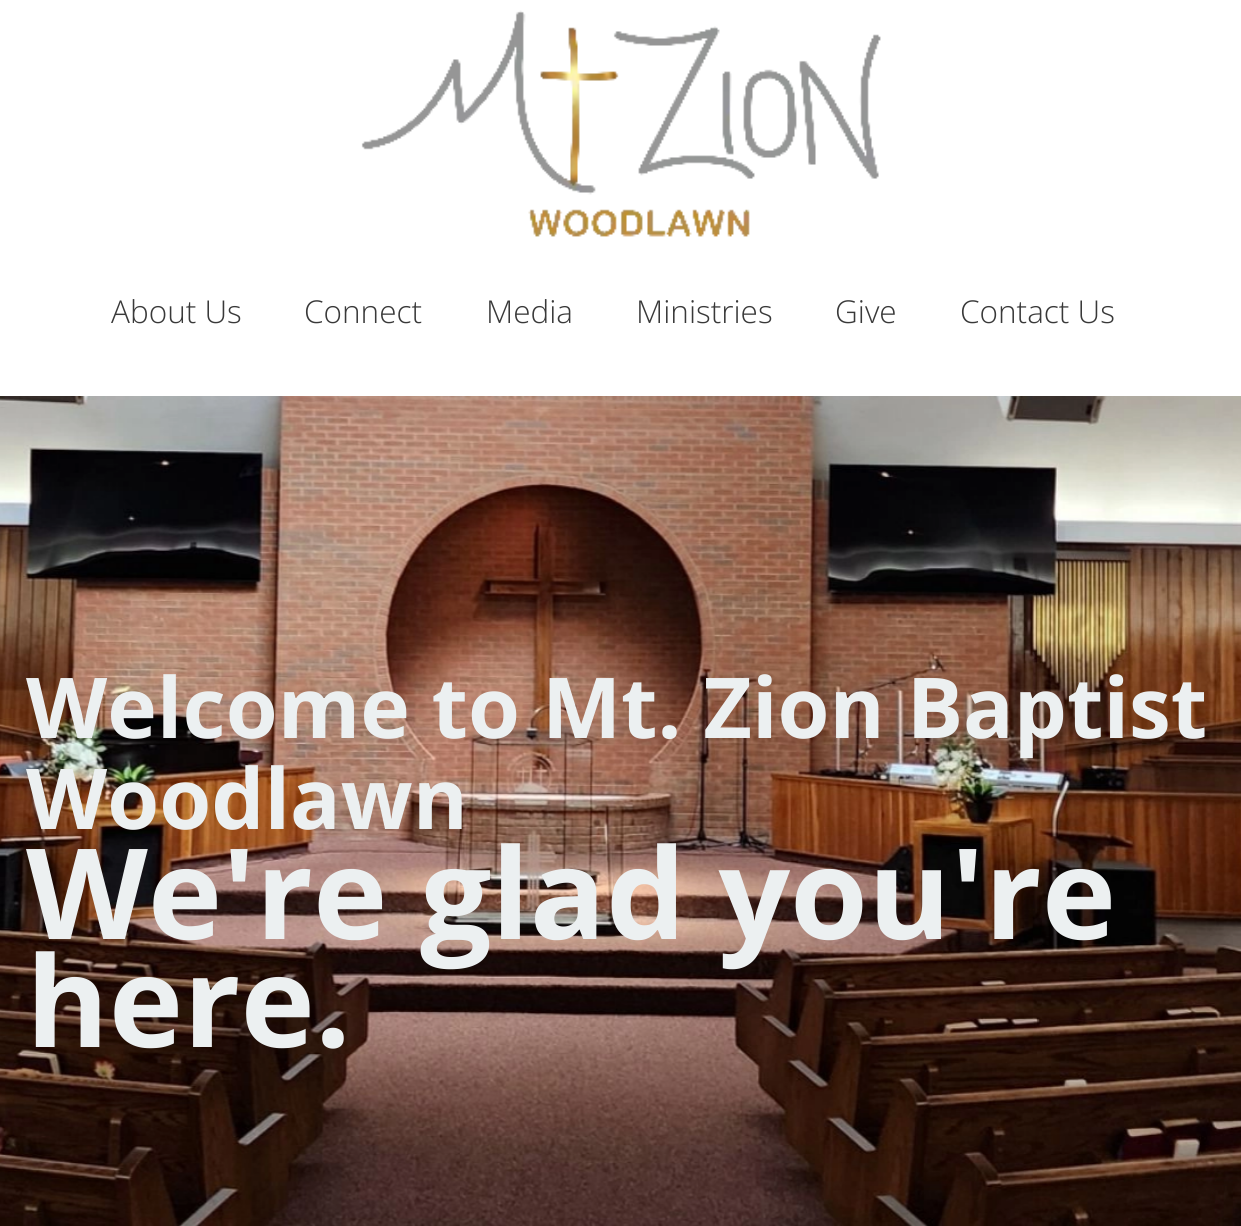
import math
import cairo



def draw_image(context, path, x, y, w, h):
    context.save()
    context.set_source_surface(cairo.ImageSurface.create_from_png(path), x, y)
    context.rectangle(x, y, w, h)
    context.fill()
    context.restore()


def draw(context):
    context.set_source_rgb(1, 1, 1)
    context.paint()
    draw_image(context, "images/1.png", 361, 10, 520, 227)
    draw_image(context, "images/2.png", 0, 396, 1241, 830)
    context.select_font_face("Open Sans Light")
    context.set_font_size(31.5)
    context.set_source_rgb(57 / 255, 57 / 255, 57 / 255)
    context.move_to(111, 323)
    context.show_text("About Us")
    context.move_to(304, 323)
    context.show_text("Connect")
    context.move_to(486, 323)
    context.show_text("Media")
    context.move_to(636, 323)
    context.show_text("Ministries")
    context.move_to(835, 323)
    context.show_text("Give")
    context.move_to(960, 323)
    context.show_text("Contact Us")
    context.select_font_face("Open Sans", cairo.FontSlant.NORMAL, cairo.FontWeight.BOLD)
    context.set_font_size(84)
    context.set_source_rgb(236 / 255, 240 / 255, 241 / 255)
    context.move_to(26, 738)
    context.show_text("Welcome to Mt. Zion Baptist")
    context.move_to(26, 829)
    context.show_text("Woodlawn")
    context.set_font_size(126)
    context.move_to(26, 939)
    context.show_text("We're glad you're")
    context.move_to(26, 1047)
    context.show_text("here.")


surface = cairo.ImageSurface(cairo.Format.RGB24, 1241, 1226)
context = cairo.Context(surface)
options = cairo.FontOptions()
options.set_hint_metrics(cairo.HintMetrics.OFF)
options.set_hint_style(cairo.HintStyle.NONE)
context.set_font_options(options)
context.set_miter_limit(4)
draw(context)
surface.write_to_png("out.png")
